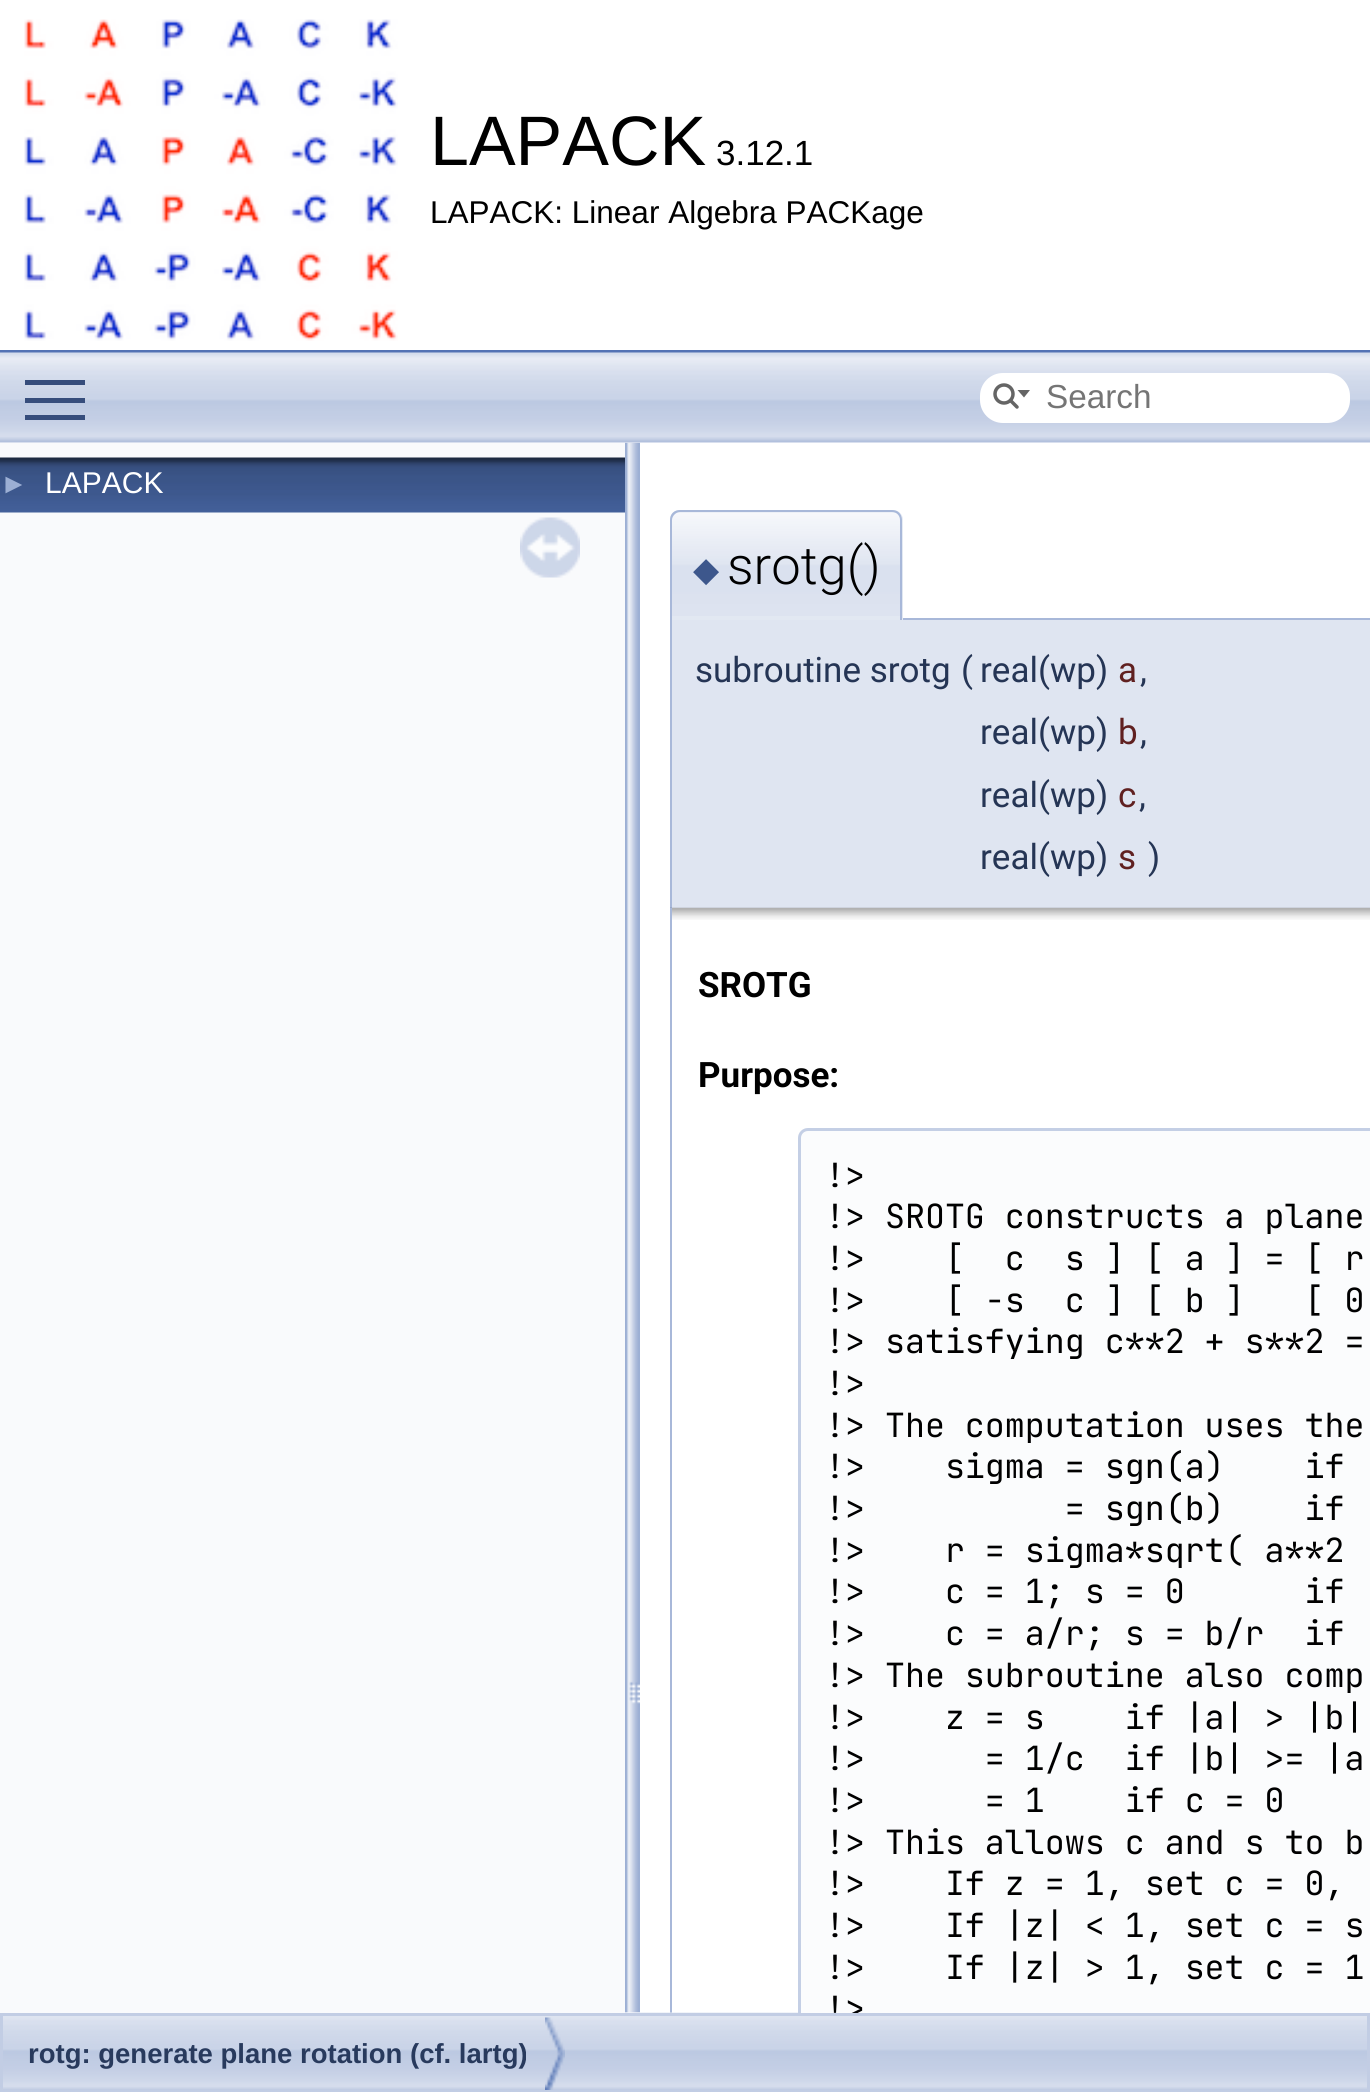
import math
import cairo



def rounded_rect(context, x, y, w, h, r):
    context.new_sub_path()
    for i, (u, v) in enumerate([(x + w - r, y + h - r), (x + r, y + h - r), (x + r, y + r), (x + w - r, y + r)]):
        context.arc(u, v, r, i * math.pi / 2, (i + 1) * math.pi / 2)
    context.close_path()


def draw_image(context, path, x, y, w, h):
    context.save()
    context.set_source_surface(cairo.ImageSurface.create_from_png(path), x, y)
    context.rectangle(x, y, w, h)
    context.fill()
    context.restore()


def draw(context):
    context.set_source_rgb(1, 1, 1)
    context.paint()
    context.set_source_rgb(83 / 255, 115 / 255, 180 / 255)
    context.rectangle(0, 350, 1370, 3)
    context.fill()
    draw_image(context, "images/1.png", 24, 19, 374, 322)
    context.set_source_rgb(223 / 255, 229 / 255, 241 / 255)
    context.rectangle(672, 620, 698, 288)
    context.fill()
    context.set_source_rgb(168 / 255, 184 / 255, 217 / 255)
    context.set_fill_rule(cairo.FillRule.EVEN_ODD)
    context.new_path()
    context.move_to(670, 618)
    context.line_to(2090, 618)
    context.curve_to(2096, 618, 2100, 622, 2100, 628)
    context.line_to(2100, 908)
    context.line_to(670, 908)
    context.close_path()
    context.move_to(672, 620)
    context.line_to(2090, 620)
    context.curve_to(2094, 620, 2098, 623, 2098, 628)
    context.line_to(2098, 908)
    context.line_to(672, 908)
    context.close_path()
    context.fill()
    draw_image(context, "images/7.png", 670, 907, 700, 13)
    context.new_path()
    context.move_to(670, 908)
    context.line_to(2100, 908)
    context.line_to(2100, 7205)
    context.curve_to(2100, 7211, 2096, 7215, 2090, 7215)
    context.line_to(680, 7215)
    context.curve_to(674, 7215, 670, 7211, 670, 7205)
    context.close_path()
    context.move_to(672, 908)
    context.line_to(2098, 908)
    context.line_to(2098, 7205)
    context.curve_to(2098, 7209, 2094, 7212, 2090, 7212)
    context.line_to(680, 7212)
    context.curve_to(676, 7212, 672, 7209, 672, 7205)
    context.close_path()
    context.fill()
    draw_image(context, "images/8.png", 3, 2012, 1364, 78)
    draw_image(context, "images/5.png", 625, 442, 15, 1571)
    draw_image(context, "images/2.png", 0, 352, 1370, 91)
    context.set_source_rgb(54 / 255, 77 / 255, 124 / 255)
    context.rectangle(25, 398, 60, 5)
    context.fill()
    context.rectangle(25, 380, 60, 5)
    context.fill()
    context.rectangle(25, 415, 60, 5)
    context.fill()
    context.set_source_rgb(1, 1, 1)
    rounded_rect(context, 980, 373, 370, 50, 23)
    context.fill()
    context.arc(1004, 394, 9, 0, 2 * math.pi)
    context.set_source_rgb(101 / 255, 101 / 255, 101 / 255)
    context.set_line_width(3.5)
    context.stroke()
    context.set_fill_rule(cairo.FillRule.WINDING)
    context.new_path()
    context.move_to(1017.5, 390)
    context.line_to(1024, 397.5)
    context.line_to(1030, 390)
    context.close_path()
    context.fill()
    context.new_path()
    context.move_to(1010.5, 400.5)
    context.line_to(1017, 407)
    context.set_line_cap(cairo.LineCap.ROUND)
    context.stroke()
    context.set_source_rgb(249 / 255, 250 / 255, 252 / 255)
    context.rectangle(0, 443, 625, 1570)
    context.fill()
    draw_image(context, "images/3.png", 0, 457, 625, 56)
    draw_image(context, "images/4.png", 520, 517, 60, 61)
    context.set_source_rgb(226 / 255, 232 / 255, 242 / 255)
    context.new_path()
    context.move_to(680, 510)
    context.line_to(893, 510)
    context.curve_to(898.5, 510, 903, 514.5, 903, 520)
    context.line_to(903, 620)
    context.line_to(670, 620)
    context.line_to(670, 520)
    context.curve_to(670, 514.5, 674.5, 510, 680, 510)
    context.close_path()
    context.fill()
    draw_image(context, "images/6.png", 670, 512, 233, 104)
    context.set_source_rgb(168 / 255, 184 / 255, 217 / 255)
    context.set_fill_rule(cairo.FillRule.EVEN_ODD)
    context.new_path()
    context.move_to(680, 510)
    context.line_to(892, 510)
    context.curve_to(898, 510, 902, 514, 902, 520)
    context.line_to(902, 620)
    context.line_to(670, 620)
    context.line_to(670, 520)
    context.curve_to(670, 514, 674, 510, 680, 510)
    context.close_path()
    context.move_to(680, 512)
    context.line_to(892, 512)
    context.curve_to(897, 512, 900, 516, 900, 520)
    context.line_to(900, 620)
    context.line_to(672, 620)
    context.line_to(672, 520)
    context.curve_to(672, 516, 676, 512, 680, 512)
    context.close_path()
    context.fill()
    context.set_source_rgb(251 / 255, 252 / 255, 253 / 255)
    context.new_path()
    context.move_to(808, 1128)
    context.line_to(1370, 1128)
    context.line_to(1370, 2013)
    context.line_to(798, 2013)
    context.line_to(798, 1138)
    context.curve_to(798, 1132.5, 802.5, 1128, 808, 1128)
    context.close_path()
    context.fill()
    context.rectangle(1.5, 2014.5, 1367, 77)
    context.set_source_rgb(194 / 255, 205 / 255, 228 / 255)
    context.set_line_width(3)
    context.set_line_cap(cairo.LineCap.BUTT)
    context.stroke()
    context.save()
    context.set_fill_rule(cairo.FillRule.WINDING)
    context.rectangle(640, 443, 730, 1570)
    context.clip()
    rounded_rect(context, 799.5, 1129.5, 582, 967, 8.5)
    context.set_source_rgb(196 / 255, 207 / 255, 229 / 255)
    context.stroke()
    context.restore()
    draw_image(context, "images/9.png", 545, 2017, 20, 73)
    context.select_font_face("Liberation Sans")
    context.set_font_size(70)
    context.set_source_rgb(0, 0, 0)
    context.move_to(430, 165)
    context.show_text("LAPACK")
    context.set_font_size(35)
    context.move_to(716, 165)
    context.show_text("3.12.1")
    context.set_font_size(31.5)
    context.move_to(430, 223)
    context.show_text("LAPACK: Linear Algebra PACKage")
    context.set_font_size(33.3)
    context.set_source_rgb(117 / 255, 117 / 255, 117 / 255)
    context.move_to(1046, 408)
    context.show_text("Search")
    context.set_font_size(28)
    context.set_source_rgb(156 / 255, 175 / 255, 212 / 255)
    context.move_to(0, 493)
    context.show_text("►")
    context.set_font_size(30)
    context.set_source_rgb(1, 1, 1)
    context.move_to(45, 493)
    context.show_text("LAPACK")
    context.select_font_face("DejaVu Sans")
    context.set_font_size(34)
    context.set_source_rgb(61 / 255, 87 / 255, 140 / 255)
    context.move_to(693, 581)
    context.show_text("◆")
    context.select_font_face("Roboto Light")
    context.set_font_size(52.5)
    context.set_source_rgb(0, 0, 0)
    context.move_to(727, 584)
    context.show_text("srotg()")
    context.select_font_face("Roboto")
    context.set_font_size(35)
    context.set_source_rgb(37 / 255, 53 / 255, 85 / 255)
    context.move_to(695, 682)
    context.show_text("subroutine srotg")
    context.move_to(961, 682)
    context.show_text("(")
    context.move_to(980, 682)
    context.show_text("real(wp)")
    context.set_source_rgb(96 / 255, 32 / 255, 32 / 255)
    context.move_to(1118, 682)
    context.show_text("a")
    context.set_source_rgb(37 / 255, 53 / 255, 85 / 255)
    context.move_to(1140, 682)
    context.show_text(",")
    context.move_to(980, 744)
    context.show_text("real(wp)")
    context.set_source_rgb(96 / 255, 32 / 255, 32 / 255)
    context.move_to(1118, 744)
    context.show_text("b")
    context.set_source_rgb(37 / 255, 53 / 255, 85 / 255)
    context.move_to(1140, 744)
    context.show_text(",")
    context.move_to(980, 807)
    context.show_text("real(wp)")
    context.set_source_rgb(96 / 255, 32 / 255, 32 / 255)
    context.move_to(1118, 807)
    context.show_text("c")
    context.set_source_rgb(37 / 255, 53 / 255, 85 / 255)
    context.move_to(1139, 807)
    context.show_text(",")
    context.move_to(980, 869)
    context.show_text("real(wp)")
    context.set_source_rgb(96 / 255, 32 / 255, 32 / 255)
    context.move_to(1118, 869)
    context.show_text("s")
    context.set_source_rgb(37 / 255, 53 / 255, 85 / 255)
    context.move_to(1148, 869)
    context.show_text(")")
    context.select_font_face("Roboto", cairo.FontSlant.NORMAL, cairo.FontWeight.BOLD)
    context.set_source_rgb(0, 0, 0)
    context.move_to(698, 997)
    context.show_text("SROTG")
    context.move_to(698, 1087)
    context.show_text("Purpose:")
    context.select_font_face("JetBrains Mono")
    context.set_font_size(33.3)
    context.move_to(825, 1187)
    context.show_text("!>")
    context.move_to(825, 1228)
    context.show_text("!> SROTG constructs a plane")
    context.move_to(825, 1270)
    context.show_text("!>    [  c  s ] [ a ] = [ r")
    context.move_to(825, 1312)
    context.show_text("!>    [ -s  c ] [ b ]   [ 0")
    context.move_to(825, 1353)
    context.show_text("!> satisfying c**2 + s**2 =")
    context.move_to(825, 1395)
    context.show_text("!>")
    context.move_to(825, 1437)
    context.show_text("!> The computation uses the")
    context.move_to(825, 1478)
    context.show_text("!>    sigma = sgn(a)    if")
    context.move_to(825, 1520)
    context.show_text("!>          = sgn(b)    if")
    context.move_to(825, 1562)
    context.show_text("!>    r = sigma*sqrt( a**2")
    context.move_to(825, 1603)
    context.show_text("!>    c = 1; s = 0      if")
    context.move_to(825, 1645)
    context.show_text("!>    c = a/r; s = b/r  if")
    context.move_to(825, 1687)
    context.show_text("!> The subroutine also comp")
    context.move_to(825, 1729)
    context.show_text("!>    z = s    if |a| > |b|")
    context.move_to(825, 1770)
    context.show_text("!>      = 1/c  if |b| >= |a")
    context.move_to(825, 1812)
    context.show_text("!>      = 1    if c = 0")
    context.move_to(825, 1854)
    context.show_text("!> This allows c and s to b")
    context.move_to(825, 1895)
    context.show_text("!>    If z = 1, set c = 0,")
    context.move_to(825, 1937)
    context.show_text("!>    If |z| < 1, set c = s")
    context.move_to(825, 1979)
    context.show_text("!>    If |z| > 1, set c = 1")
    context.save()
    context.set_fill_rule(cairo.FillRule.WINDING)
    context.rectangle(640, 443, 730, 1570)
    context.clip()
    context.move_to(825, 2020)
    context.show_text("!>")
    context.restore()
    context.select_font_face("Liberation Sans", cairo.FontSlant.NORMAL, cairo.FontWeight.BOLD)
    context.set_font_size(27.5)
    context.set_source_rgb(40 / 255, 58 / 255, 93 / 255)
    context.move_to(28, 2063)
    context.show_text("rotg: generate plane rotation (cf. lartg)")


surface = cairo.ImageSurface(cairo.Format.RGB24, 1370, 2092)
context = cairo.Context(surface)
options = cairo.FontOptions()
options.set_hint_metrics(cairo.HintMetrics.OFF)
options.set_hint_style(cairo.HintStyle.NONE)
context.set_font_options(options)
context.set_miter_limit(4)
draw(context)
surface.write_to_png("out.png")
